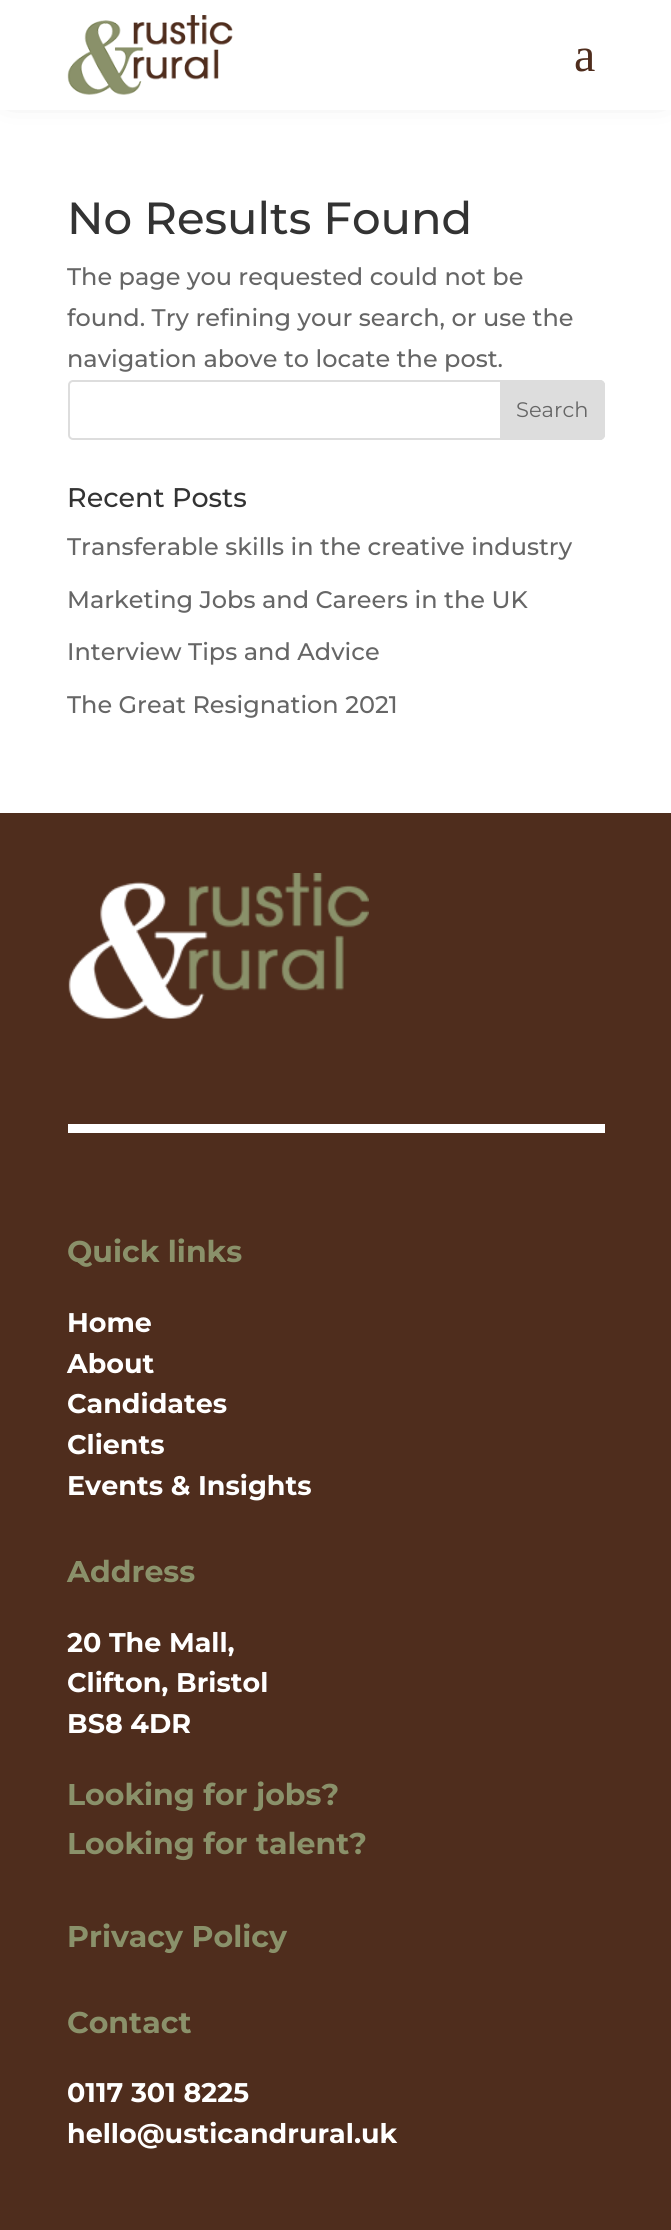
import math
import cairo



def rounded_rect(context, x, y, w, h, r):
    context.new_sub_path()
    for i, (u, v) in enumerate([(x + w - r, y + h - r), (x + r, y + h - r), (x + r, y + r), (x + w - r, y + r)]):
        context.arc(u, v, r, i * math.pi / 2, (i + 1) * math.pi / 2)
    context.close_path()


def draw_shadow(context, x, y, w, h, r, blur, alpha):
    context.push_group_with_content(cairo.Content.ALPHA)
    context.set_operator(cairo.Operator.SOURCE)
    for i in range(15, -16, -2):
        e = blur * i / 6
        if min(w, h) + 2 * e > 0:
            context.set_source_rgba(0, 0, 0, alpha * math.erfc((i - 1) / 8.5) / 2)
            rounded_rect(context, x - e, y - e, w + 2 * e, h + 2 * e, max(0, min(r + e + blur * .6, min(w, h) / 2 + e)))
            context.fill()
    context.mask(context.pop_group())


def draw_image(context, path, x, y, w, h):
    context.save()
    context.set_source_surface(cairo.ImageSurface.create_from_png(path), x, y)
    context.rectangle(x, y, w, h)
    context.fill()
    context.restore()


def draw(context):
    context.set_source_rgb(1, 1, 1)
    context.paint()
    context.set_source_rgb(0, 0, 0)
    draw_shadow(context, 9, -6, 654, 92, 0, 18, 0.3)
    context.set_source_rgb(1, 1, 1)
    context.rectangle(0, 0, 671, 110)
    context.fill()
    draw_image(context, "images/1.png", 67, 15, 166, 80)
    rounded_rect(context, 69, 381, 535, 58, 4)
    context.set_source_rgb(221 / 255, 221 / 255, 221 / 255)
    context.stroke()
    context.new_path()
    context.move_to(501, 381)
    context.line_to(600, 381)
    context.curve_to(602, 381, 604, 383, 604, 385)
    context.line_to(604, 435)
    context.curve_to(604, 437, 602, 439, 600, 439)
    context.line_to(501, 439)
    context.close_path()
    context.fill_preserve()
    context.stroke()
    context.set_source_rgb(79 / 255, 45 / 255, 29 / 255)
    context.rectangle(0, 813, 671, 1417)
    context.fill()
    draw_image(context, "images/2.png", 68, 873, 301, 146)
    context.set_source_rgb(1, 1, 1)
    context.rectangle(68, 1124, 537, 9)
    context.fill()
    context.select_font_face("Liberation Serif")
    context.set_font_size(48)
    context.set_source_rgb(79 / 255, 45 / 255, 29 / 255)
    context.move_to(574, 71)
    context.show_text("a")
    context.select_font_face("Montserrat Thin")
    context.set_font_size(45)
    context.set_source_rgb(51 / 255, 51 / 255, 51 / 255)
    context.move_to(67, 234)
    context.show_text("No Results Found")
    context.set_font_size(24)
    context.set_source_rgb(102 / 255, 102 / 255, 102 / 255)
    context.move_to(67, 285)
    context.show_text("The page you requested could not be")
    context.move_to(67, 326)
    context.show_text("found. Try refining your search, or use the")
    context.move_to(67, 367)
    context.show_text("navigation above to locate the post.")
    context.select_font_face("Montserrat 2 Thin")
    context.set_font_size(21)
    context.move_to(516, 417)
    context.show_text("Search")
    context.select_font_face("Montserrat Thin")
    context.set_font_size(27)
    context.set_source_rgb(51 / 255, 51 / 255, 51 / 255)
    context.move_to(67, 507)
    context.show_text("Recent Posts")
    context.set_font_size(24)
    context.set_source_rgb(102 / 255, 102 / 255, 102 / 255)
    context.move_to(67, 555)
    context.show_text("Transferable skills in the creative industry")
    context.move_to(67, 608)
    context.show_text("Marketing Jobs and Careers in the UK")
    context.move_to(67, 660)
    context.show_text("Interview Tips and Advice")
    context.move_to(67, 713)
    context.show_text("The Great Resignation 2021")
    context.select_font_face("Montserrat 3 Thin")
    context.set_font_size(30)
    context.set_source_rgb(138 / 255, 145 / 255, 106 / 255)
    context.move_to(67, 1262)
    context.show_text("Quick links")
    context.set_font_size(27)
    context.set_source_rgb(1, 1, 1)
    context.move_to(67, 1332)
    context.show_text("Home")
    context.move_to(67, 1373)
    context.show_text("About")
    context.move_to(67, 1413)
    context.show_text("Candidates")
    context.move_to(67, 1454)
    context.show_text("Clients")
    context.move_to(67, 1495)
    context.show_text("Events & Insights")
    context.set_font_size(30)
    context.set_source_rgb(138 / 255, 145 / 255, 106 / 255)
    context.move_to(67, 1582)
    context.show_text("Address")
    context.set_font_size(27)
    context.set_source_rgb(1, 1, 1)
    context.move_to(67, 1652)
    context.show_text("20 The Mall,")
    context.move_to(67, 1692)
    context.show_text("Clifton, Bristol")
    context.move_to(67, 1733)
    context.show_text("BS8 4DR")
    context.set_font_size(30)
    context.set_source_rgb(138 / 255, 145 / 255, 106 / 255)
    context.move_to(67, 1805)
    context.show_text("Looking for jobs?")
    context.move_to(67, 1854)
    context.show_text("Looking for talent?")
    context.move_to(67, 1947)
    context.show_text("Privacy Policy")
    context.move_to(67, 2033)
    context.show_text("Contact")
    context.set_font_size(27)
    context.set_source_rgb(1, 1, 1)
    context.move_to(67, 2102)
    context.show_text("0117 301 8225")
    context.move_to(67, 2143)
    context.show_text("hello@usticandrural.uk")


surface = cairo.ImageSurface(cairo.Format.RGB24, 671, 2230)
context = cairo.Context(surface)
options = cairo.FontOptions()
options.set_hint_metrics(cairo.HintMetrics.OFF)
options.set_hint_style(cairo.HintStyle.NONE)
context.set_font_options(options)
context.set_miter_limit(4)
draw(context)
surface.write_to_png("out.png")
